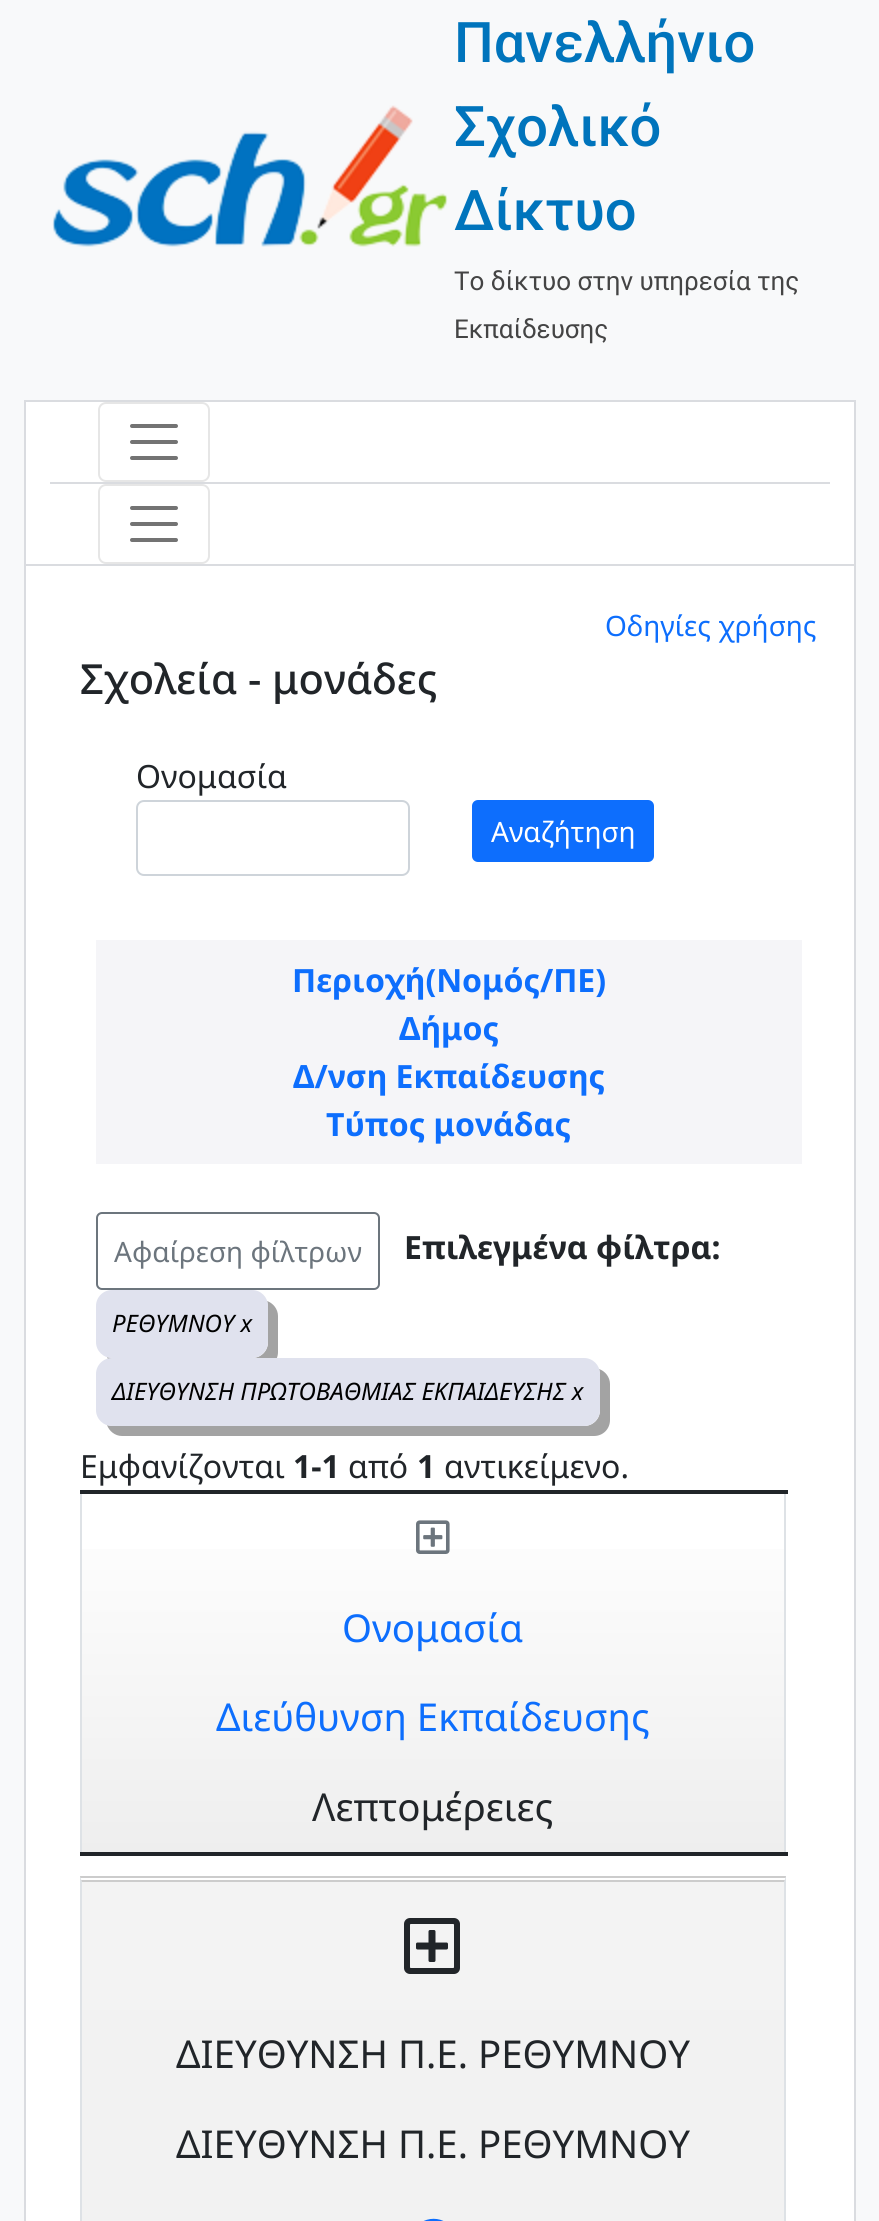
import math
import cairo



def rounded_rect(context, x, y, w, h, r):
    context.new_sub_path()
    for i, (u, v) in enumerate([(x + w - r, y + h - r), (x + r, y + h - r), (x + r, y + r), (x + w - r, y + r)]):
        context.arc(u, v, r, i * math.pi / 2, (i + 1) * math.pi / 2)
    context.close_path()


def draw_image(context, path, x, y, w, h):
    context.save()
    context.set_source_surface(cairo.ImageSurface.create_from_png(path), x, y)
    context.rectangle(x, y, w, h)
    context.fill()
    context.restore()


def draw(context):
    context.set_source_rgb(248 / 255, 249 / 255, 250 / 255)
    context.paint()
    draw_image(context, "images/1.png", 52, 105, 396, 142)
    context.set_source_rgb(1, 1, 1)
    context.rectangle(26, 402, 828, 162)
    context.fill()
    context.set_source_rgb(218 / 255, 220 / 255, 224 / 255)
    context.rectangle(24, 400, 832, 2)
    context.fill()
    context.rectangle(854, 400, 2, 164)
    context.fill()
    context.rectangle(24, 400, 2, 164)
    context.fill()
    context.rectangle(50, 482, 780, 2)
    context.fill()
    rounded_rect(context, 99, 403, 110, 78, 7)
    context.set_source_rgb(230 / 255, 230 / 255, 230 / 255)
    context.stroke()
    context.new_path()
    context.move_to(132, 426)
    context.line_to(176, 426)
    context.move_to(132, 442)
    context.line_to(176, 442)
    context.move_to(132, 458)
    context.line_to(176, 458)
    context.set_source_rgb(115 / 255, 115 / 255, 115 / 255)
    context.set_line_width(4)
    context.set_line_cap(cairo.LineCap.ROUND)
    context.stroke()
    rounded_rect(context, 99, 485, 110, 78, 7)
    context.set_source_rgb(230 / 255, 230 / 255, 230 / 255)
    context.set_line_width(2)
    context.set_line_cap(cairo.LineCap.BUTT)
    context.stroke()
    context.new_path()
    context.move_to(132, 508)
    context.line_to(176, 508)
    context.move_to(132, 524)
    context.line_to(176, 524)
    context.move_to(132, 540)
    context.line_to(176, 540)
    context.set_source_rgb(115 / 255, 115 / 255, 115 / 255)
    context.set_line_width(4)
    context.set_line_cap(cairo.LineCap.ROUND)
    context.stroke()
    context.set_source_rgb(1, 1, 1)
    context.rectangle(25, 565, 830, 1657)
    context.fill_preserve()
    context.set_source_rgb(218 / 255, 220 / 255, 224 / 255)
    context.set_line_width(2)
    context.set_line_cap(cairo.LineCap.BUTT)
    context.stroke()
    rounded_rect(context, 137, 801, 272, 74, 7)
    context.set_source_rgb(206 / 255, 212 / 255, 218 / 255)
    context.stroke()
    context.set_source_rgb(13 / 255, 110 / 255, 253 / 255)
    rounded_rect(context, 473, 801, 180, 60, 5)
    context.fill_preserve()
    context.stroke()
    context.set_source_rgb(245 / 255, 245 / 255, 248 / 255)
    context.rectangle(96, 940, 706, 224)
    context.fill()
    context.set_source_rgb(163 / 255, 163 / 255, 163 / 255)
    context.new_path()
    context.move_to(107, 1357)
    context.curve_to(109, 1363, 115, 1368, 122, 1368)
    context.line_to(262, 1368)
    context.curve_to(271, 1368, 278, 1361, 278, 1352)
    context.line_to(278, 1316)
    context.curve_to(278, 1309, 273, 1303, 267, 1301)
    context.line_to(268, 1306)
    context.line_to(268, 1342)
    context.curve_to(268, 1351, 261, 1358, 252, 1358)
    context.line_to(112, 1358)
    context.close_path()
    context.fill()
    context.set_source_rgb(224 / 255, 226 / 255, 238 / 255)
    rounded_rect(context, 96, 1290, 172, 68, 16)
    context.fill()
    context.set_source_rgb(163 / 255, 163 / 255, 163 / 255)
    context.new_path()
    context.move_to(107, 1425)
    context.curve_to(109, 1431, 115, 1436, 122, 1436)
    context.line_to(594, 1436)
    context.curve_to(603, 1436, 610, 1429, 610, 1420)
    context.line_to(610, 1384)
    context.curve_to(610, 1377, 605, 1371, 599, 1369)
    context.line_to(600, 1374)
    context.line_to(600, 1410)
    context.curve_to(600, 1419, 593, 1426, 584, 1426)
    context.line_to(112, 1426)
    context.close_path()
    context.fill()
    context.set_source_rgb(224 / 255, 226 / 255, 238 / 255)
    rounded_rect(context, 96, 1358, 504, 68, 16)
    context.fill()
    rounded_rect(context, 97, 1213, 282, 76, 5)
    context.set_source_rgb(108 / 255, 117 / 255, 125 / 255)
    context.stroke()
    gradient = cairo.LinearGradient(433, 1496, 433, 1854)
    gradient.add_color_stop_rgba(0, 1, 1, 1, 1)
    gradient.add_color_stop_rgba(1, 238 / 255, 238 / 255, 238 / 255, 1)
    context.set_source(gradient)
    context.rectangle(82, 1549, 702, 303)
    context.fill()
    context.set_source_rgb(33 / 255, 37 / 255, 41 / 255)
    context.rectangle(80, 1490, 708, 4)
    context.fill()
    context.set_source_rgb(222 / 255, 226 / 255, 230 / 255)
    context.rectangle(784, 1494, 2, 358)
    context.fill()
    context.rectangle(80, 1494, 2, 358)
    context.fill()
    draw_image(context, "images/2.png", 416, 1520, 34, 34)
    context.set_source_rgb(33 / 255, 37 / 255, 41 / 255)
    context.rectangle(80, 1852, 708, 4)
    context.fill()
    context.set_source_rgb(243 / 255, 243 / 255, 243 / 255)
    context.rectangle(82, 1882, 702, 128)
    context.fill()
    context.set_source_rgb(204 / 255, 204 / 255, 204 / 255)
    context.rectangle(80, 1876, 706, 2)
    context.fill()
    context.rectangle(80, 1880, 706, 2)
    context.fill()
    context.set_source_rgb(222 / 255, 226 / 255, 230 / 255)
    context.new_path()
    context.move_to(786, 1876)
    context.line_to(786, 2010)
    context.line_to(784, 2010)
    context.line_to(784, 1882)
    context.close_path()
    context.fill()
    context.new_path()
    context.move_to(80, 2010)
    context.line_to(80, 1876)
    context.line_to(82, 1882)
    context.line_to(82, 2010)
    context.close_path()
    context.fill()
    draw_image(context, "images/3.png", 404, 1918, 56, 56)
    context.set_source_rgb(242 / 255, 242 / 255, 242 / 255)
    context.rectangle(82, 2010, 702, 211)
    context.fill()
    context.set_source_rgb(222 / 255, 226 / 255, 230 / 255)
    context.rectangle(784, 2010, 2, 211)
    context.fill()
    context.rectangle(80, 2010, 2, 211)
    context.fill()
    draw_image(context, "images/4.png", 423, 2218, 21, 3)
    context.select_font_face("Roboto Medium")
    context.set_font_size(56)
    context.set_source_rgb(0, 116 / 255, 188 / 255)
    context.move_to(454, 62)
    context.show_text("Πανελλήνιο")
    context.move_to(454, 146)
    context.show_text("Σχολικό")
    context.move_to(454, 230)
    context.show_text("Δίκτυο")
    context.select_font_face("Roboto")
    context.set_font_size(26)
    context.set_source_rgb(68 / 255, 68 / 255, 68 / 255)
    context.move_to(454, 290)
    context.show_text("Το δίκτυο στην υπηρεσία της")
    context.move_to(454, 338)
    context.show_text("Εκπαίδευσης")
    context.select_font_face("Noto Sans")
    context.set_font_size(28)
    context.set_source_rgb(13 / 255, 110 / 255, 253 / 255)
    context.move_to(605, 636)
    context.show_text("Οδηγίες χρήσης")
    context.select_font_face("Noto Sans Medium")
    context.set_font_size(41.5)
    context.set_source_rgb(33 / 255, 37 / 255, 41 / 255)
    context.move_to(80, 694)
    context.show_text("Σχολεία - μονάδες")
    context.select_font_face("Noto Sans")
    context.set_font_size(32)
    context.move_to(136, 788)
    context.show_text("Ονομασία")
    context.set_font_size(28)
    context.set_source_rgb(1, 1, 1)
    context.move_to(491, 842)
    context.show_text("Αναζήτηση")
    context.select_font_face("Noto Sans", cairo.FontSlant.NORMAL, cairo.FontWeight.BOLD)
    context.set_font_size(32)
    context.set_source_rgb(13 / 255, 110 / 255, 253 / 255)
    context.move_to(292, 992)
    context.show_text("Περιοχή(Νομός/ΠΕ)")
    context.move_to(399, 1040)
    context.show_text("Δήμος")
    context.move_to(293, 1088)
    context.show_text("Δ/νση Εκπαίδευσης")
    context.move_to(326, 1136)
    context.show_text("Τύπος μονάδας")
    context.set_source_rgb(33 / 255, 37 / 255, 41 / 255)
    context.move_to(404, 1259)
    context.show_text("Επιλεγμένα φίλτρα:")
    context.select_font_face("Noto Sans", cairo.FontSlant.ITALIC)
    context.set_font_size(24)
    context.set_source_rgb(0, 0, 0)
    context.move_to(112, 1332)
    context.show_text("ΡΕΘΥΜΝΟΥ x")
    context.move_to(112, 1400)
    context.show_text("ΔΙΕΥΘΥΝΣΗ ΠΡΩΤΟΒΑΘΜΙΑΣ ΕΚΠΑΙΔΕΥΣΗΣ x")
    context.select_font_face("Noto Sans")
    context.set_font_size(28)
    context.set_source_rgb(108 / 255, 117 / 255, 125 / 255)
    context.move_to(114, 1262)
    context.show_text("Αφαίρεση φίλτρων")
    context.set_font_size(32)
    context.set_source_rgb(33 / 255, 37 / 255, 41 / 255)
    context.move_to(80, 1478)
    context.show_text("Εμφανίζονται")
    context.select_font_face("Noto Sans", cairo.FontSlant.NORMAL, cairo.FontWeight.BOLD)
    context.move_to(293, 1478)
    context.show_text("1-1")
    context.select_font_face("Noto Sans")
    context.move_to(348, 1478)
    context.show_text("από")
    context.select_font_face("Noto Sans", cairo.FontSlant.NORMAL, cairo.FontWeight.BOLD)
    context.move_to(417, 1478)
    context.show_text("1")
    context.select_font_face("Noto Sans")
    context.move_to(444, 1478)
    context.show_text("αντικείμενο.")
    context.set_font_size(38.4)
    context.set_source_rgb(13 / 255, 110 / 255, 253 / 255)
    context.move_to(342, 1642)
    context.show_text("Ονομασία")
    context.move_to(216, 1731)
    context.show_text("Διεύθυνση Εκπαίδευσης")
    context.set_source_rgb(33 / 255, 37 / 255, 41 / 255)
    context.move_to(312, 1821)
    context.show_text("Λεπτομέρειες")
    context.move_to(176, 2068)
    context.show_text("ΔΙΕΥΘΥΝΣΗ Π.Ε. ΡΕΘΥΜΝΟΥ")
    context.move_to(176, 2158)
    context.show_text("ΔΙΕΥΘΥΝΣΗ Π.Ε. ΡΕΘΥΜΝΟΥ")


surface = cairo.ImageSurface(cairo.Format.RGB24, 879, 2221)
context = cairo.Context(surface)
options = cairo.FontOptions()
options.set_hint_metrics(cairo.HintMetrics.OFF)
options.set_hint_style(cairo.HintStyle.NONE)
context.set_font_options(options)
context.set_miter_limit(4)
draw(context)
surface.write_to_png("out.png")
